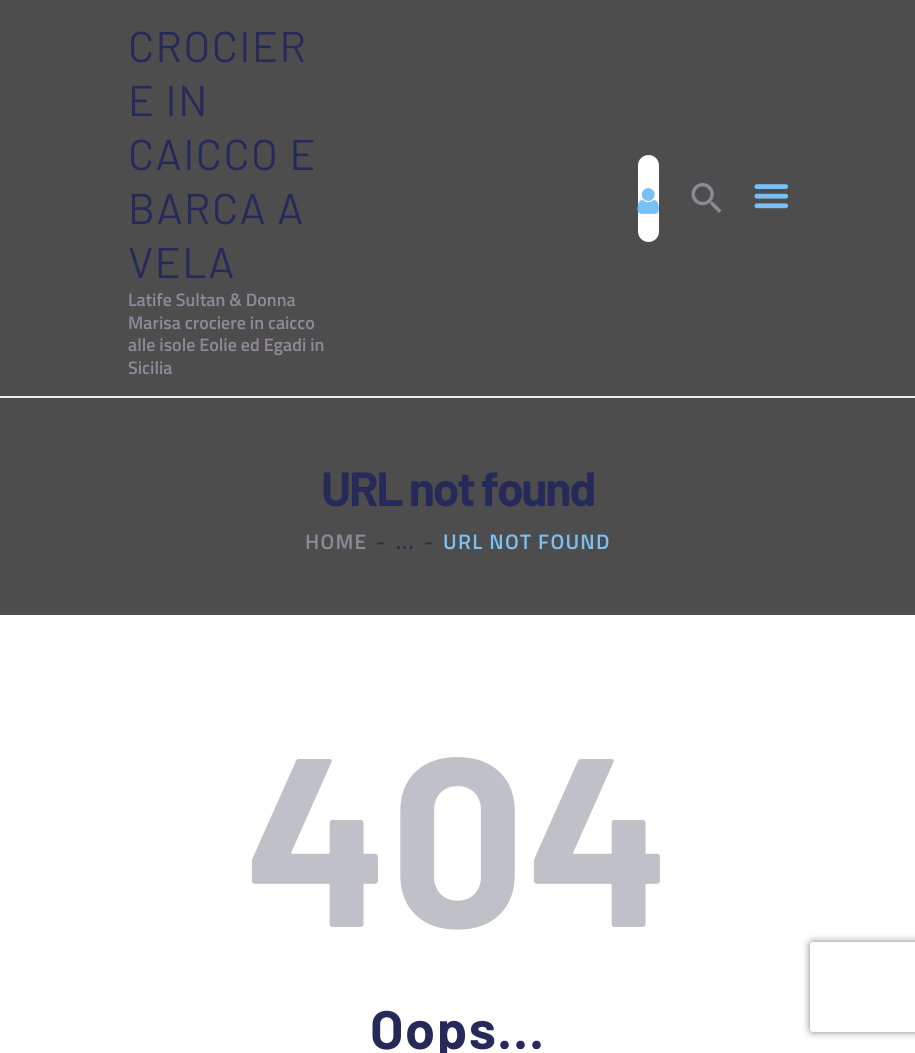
import math
import cairo



def draw_spaced(context, x, y, s, letter, word):
    context.move_to(x, y)
    for ch in s:
        context.show_text(ch)
        context.rel_move_to(letter + word * (ch == ' '), 0)


def rounded_rect(context, x, y, w, h, r):
    context.new_sub_path()
    for i, (u, v) in enumerate([(x + w - r, y + h - r), (x + r, y + h - r), (x + r, y + r), (x + w - r, y + r)]):
        context.arc(u, v, r, i * math.pi / 2, (i + 1) * math.pi / 2)
    context.close_path()


def draw_shadow(context, x, y, w, h, r, blur, alpha):
    context.push_group_with_content(cairo.Content.ALPHA)
    context.set_operator(cairo.Operator.SOURCE)
    for i in range(15, -16, -2):
        e = blur * i / 6
        if min(w, h) + 2 * e > 0:
            context.set_source_rgba(0, 0, 0, alpha * math.erfc((i - 1) / 8.5) / 2)
            rounded_rect(context, x - e, y - e, w + 2 * e, h + 2 * e, max(0, min(r + e + blur * .6, min(w, h) / 2 + e)))
            context.fill()
    context.mask(context.pop_group())


def draw_image(context, path, x, y, w, h):
    context.save()
    context.set_source_surface(cairo.ImageSurface.create_from_png(path), x, y)
    context.rectangle(x, y, w, h)
    context.fill()
    context.restore()


def draw(context):
    context.set_source_rgb(1, 1, 1)
    context.paint()
    context.set_source_rgb(77 / 255, 77 / 255, 77 / 255)
    context.rectangle(0, 0, 915, 615)
    context.fill()
    context.set_source_rgb(234 / 255, 239 / 255, 243 / 255)
    context.rectangle(0, 396, 915, 2)
    context.fill()
    context.set_source_rgb(1, 1, 1)
    rounded_rect(context, 638, 155, 21, 87, 10.5)
    context.fill()
    draw_image(context, "images/1.png", 637, 188, 22, 26)
    draw_image(context, "images/2.png", 691, 183, 31, 30)
    draw_image(context, "images/3.png", 754, 184, 35, 25)
    context.save()
    context.set_fill_rule(cairo.FillRule.EVEN_ODD)
    context.new_path()
    context.move_to(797, 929)
    context.line_to(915, 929)
    context.line_to(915, 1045)
    context.line_to(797, 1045)
    context.close_path()
    context.move_to(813, 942)
    context.line_to(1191, 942)
    context.curve_to(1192.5, 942, 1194, 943.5, 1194, 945)
    context.line_to(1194, 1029)
    context.curve_to(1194, 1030.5, 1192.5, 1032, 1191, 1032)
    context.line_to(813, 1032)
    context.curve_to(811.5, 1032, 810, 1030.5, 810, 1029)
    context.line_to(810, 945)
    context.curve_to(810, 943.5, 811.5, 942, 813, 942)
    context.close_path()
    context.clip()
    context.set_source_rgb(128 / 255, 128 / 255, 128 / 255)
    draw_shadow(context, 810, 942, 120, 90, 3, 4, 1)
    context.restore()
    context.select_font_face("Barlow")
    context.set_font_size(43)
    context.set_source_rgb(38 / 255, 42 / 255, 89 / 255)
    draw_spaced(context, 128, 62, "CROCIER", 1.5, 0)
    draw_spaced(context, 128, 116, "E IN", 1.5, 0)
    draw_spaced(context, 128, 170, "CAICCO E", 1.5, 0)
    draw_spaced(context, 128, 224, "BARCA A", 1.5, 0)
    draw_spaced(context, 128, 278, "VELA", 1.5, 0)
    context.select_font_face("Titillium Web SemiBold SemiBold")
    context.set_font_size(18)
    context.set_source_rgb(142 / 255, 137 / 255, 151 / 255)
    context.move_to(128, 306)
    context.show_text("Latife Sultan & Donna")
    context.move_to(128, 329)
    context.show_text("Marisa crociere in caicco")
    context.move_to(128, 351)
    context.show_text("alle isole Eolie ed Egadi in")
    context.move_to(128, 374)
    context.show_text("Sicilia")
    context.select_font_face("Barlow", cairo.FontSlant.NORMAL, cairo.FontWeight.BOLD)
    context.set_font_size(48)
    context.set_source_rgb(38 / 255, 42 / 255, 89 / 255)
    draw_spaced(context, 321, 506, "URL not found", -2.25, 0)
    context.select_font_face("Titillium Web SemiBold SemiBold")
    context.set_font_size(21)
    context.set_source_rgb(142 / 255, 137 / 255, 151 / 255)
    draw_spaced(context, 305, 549, "HOME", 1.25, 0)
    context.set_source_rgb(38 / 255, 42 / 255, 89 / 255)
    draw_spaced(context, 376, 549, "-", 1.25, 0)
    draw_spaced(context, 424, 549, "-", 1.25, 0)
    context.set_source_rgb(122 / 255, 192 / 255, 244 / 255)
    draw_spaced(context, 443, 549, "URL NOT FOUND", 1.25, 0)
    context.set_source_rgb(38 / 255, 42 / 255, 89 / 255)
    draw_spaced(context, 396, 549, "...", 1.25, 0)
    context.select_font_face("Barlow", cairo.FontSlant.NORMAL, cairo.FontWeight.BOLD)
    context.set_font_size(240)
    context.set_source_rgb(191 / 255, 192 / 255, 200 / 255)
    context.move_to(244, 927)
    context.show_text("404")
    context.set_font_size(54)
    context.set_source_rgb(38 / 255, 42 / 255, 89 / 255)
    draw_spaced(context, 370, 1049, "Oops...", 1.5, 0)


surface = cairo.ImageSurface(cairo.Format.RGB24, 915, 1053)
context = cairo.Context(surface)
options = cairo.FontOptions()
options.set_hint_metrics(cairo.HintMetrics.OFF)
options.set_hint_style(cairo.HintStyle.NONE)
context.set_font_options(options)
context.set_miter_limit(4)
draw(context)
surface.write_to_png("out.png")
